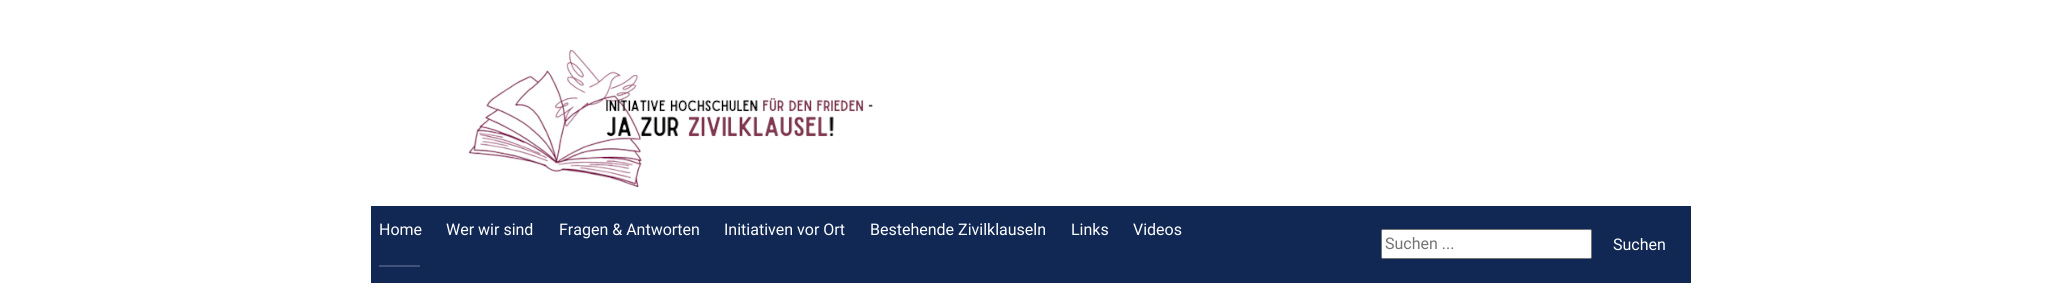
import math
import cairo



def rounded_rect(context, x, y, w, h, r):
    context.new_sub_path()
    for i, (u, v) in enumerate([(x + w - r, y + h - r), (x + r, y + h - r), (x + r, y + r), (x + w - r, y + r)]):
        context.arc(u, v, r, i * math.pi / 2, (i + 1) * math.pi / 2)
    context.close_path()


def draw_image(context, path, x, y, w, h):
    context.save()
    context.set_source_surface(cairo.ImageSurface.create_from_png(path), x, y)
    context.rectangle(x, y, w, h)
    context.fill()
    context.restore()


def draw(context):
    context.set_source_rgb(1, 1, 1)
    context.paint()
    draw_image(context, "images/1.png", 468, 49, 405, 139)
    context.set_source_rgb(17 / 255, 40 / 255, 85 / 255)
    context.rectangle(371, 206, 1320, 77)
    context.fill()
    context.set_source_rgb(65 / 255, 83 / 255, 119 / 255)
    context.rectangle(379, 265, 41, 2)
    context.fill()
    context.set_source_rgb(1, 1, 1)
    rounded_rect(context, 1381.5, 229.5, 210, 29, 1.5)
    context.fill_preserve()
    context.set_source_rgb(118 / 255, 118 / 255, 118 / 255)
    context.set_line_width(1)
    context.stroke()
    context.select_font_face("Roboto")
    context.set_font_size(16)
    context.set_source_rgb(1, 1, 1)
    context.move_to(379, 235)
    context.show_text("Home")
    context.move_to(446, 235)
    context.show_text("Wer wir sind")
    context.move_to(559, 235)
    context.show_text("Fragen & Antworten")
    context.move_to(724, 235)
    context.show_text("Initiativen vor Ort")
    context.move_to(870, 235)
    context.show_text("Bestehende Zivilklauseln")
    context.move_to(1071, 235)
    context.show_text("Links")
    context.move_to(1133, 235)
    context.show_text("Videos")
    context.set_source_rgb(117 / 255, 117 / 255, 117 / 255)
    context.move_to(1385, 249)
    context.show_text("Suchen ...")
    context.set_source_rgb(1, 1, 1)
    context.move_to(1613, 250)
    context.show_text("Suchen")


surface = cairo.ImageSurface(cairo.Format.RGB24, 2061, 307)
context = cairo.Context(surface)
options = cairo.FontOptions()
options.set_hint_metrics(cairo.HintMetrics.OFF)
options.set_hint_style(cairo.HintStyle.NONE)
context.set_font_options(options)
context.set_miter_limit(4)
draw(context)
surface.write_to_png("out.png")
